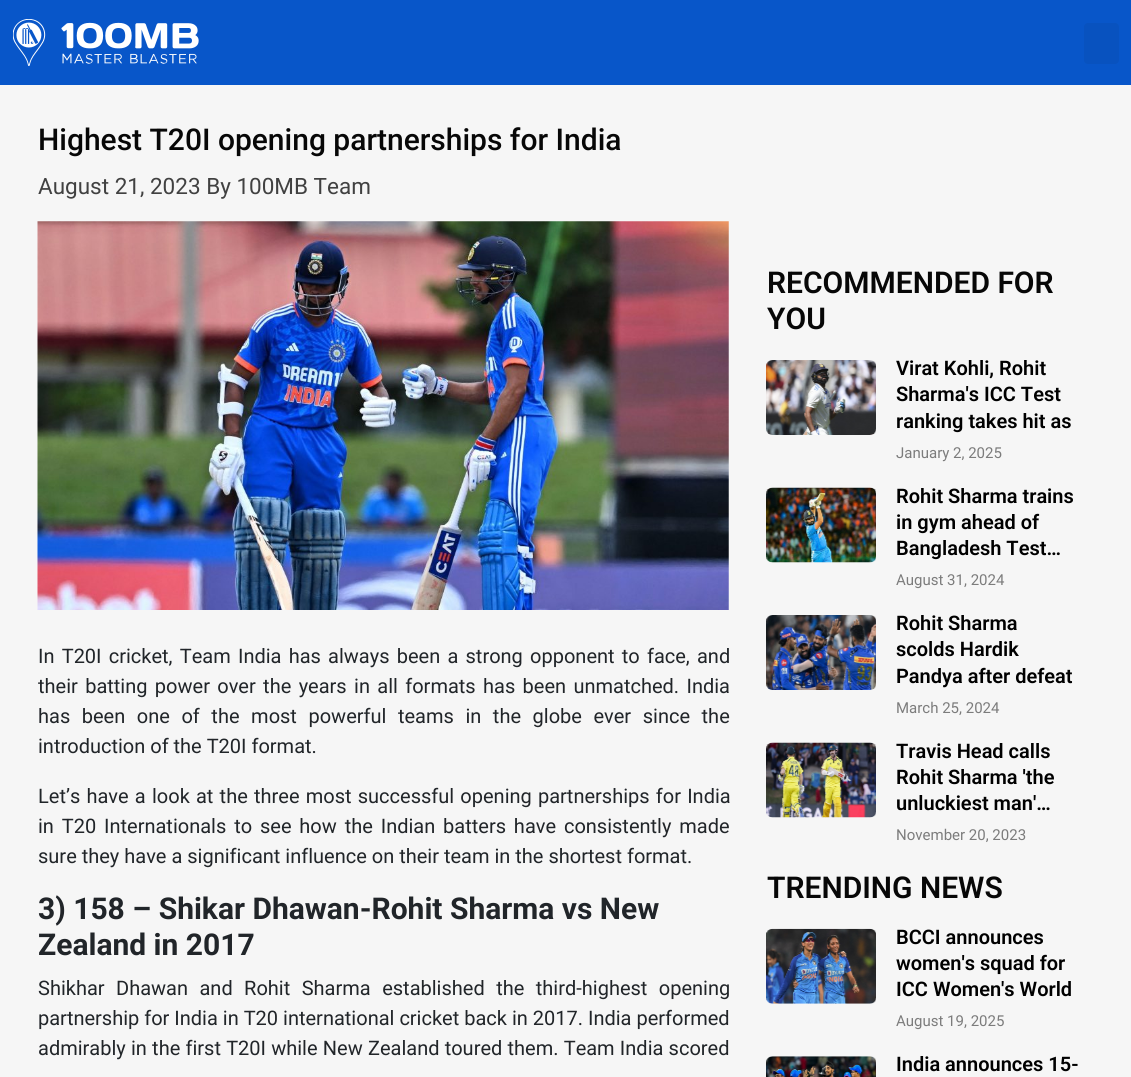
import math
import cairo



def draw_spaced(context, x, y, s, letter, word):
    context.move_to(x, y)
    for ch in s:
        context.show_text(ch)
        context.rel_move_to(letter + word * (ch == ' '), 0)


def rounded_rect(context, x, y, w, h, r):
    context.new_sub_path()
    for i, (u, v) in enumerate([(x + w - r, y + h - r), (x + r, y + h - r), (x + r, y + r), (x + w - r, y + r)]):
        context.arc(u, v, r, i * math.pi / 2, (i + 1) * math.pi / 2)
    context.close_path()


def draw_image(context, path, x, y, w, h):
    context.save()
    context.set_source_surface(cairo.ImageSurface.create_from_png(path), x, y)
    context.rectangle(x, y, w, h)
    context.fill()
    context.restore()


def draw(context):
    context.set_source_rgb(246 / 255, 246 / 255, 246 / 255)
    context.paint()
    context.set_source_rgb(8 / 255, 86 / 255, 201 / 255)
    context.rectangle(0, 0, 1131, 85)
    context.fill()
    draw_image(context, "images/1.png", 13, 19, 186, 47)
    context.set_source_rgb(8 / 255, 82 / 255, 191 / 255)
    rounded_rect(context, 1084, 23, 35, 41, 4)
    context.fill()
    draw_image(context, "images/2.png", 37, 221, 692, 389)
    draw_image(context, "images/3.png", 766, 360, 110, 75)
    draw_image(context, "images/4.png", 766, 487, 110, 76)
    draw_image(context, "images/5.png", 766, 615, 110, 75)
    draw_image(context, "images/6.png", 766, 742, 110, 76)
    draw_image(context, "images/7.png", 766, 928, 110, 76)
    draw_image(context, "images/8.png", 766, 1056, 110, 21)
    context.select_font_face("Roboto Medium")
    context.set_font_size(30)
    context.set_source_rgb(7 / 255, 7 / 255, 7 / 255)
    context.move_to(38, 150)
    context.show_text("Highest T20I opening partnerships for India")
    context.select_font_face("Roboto")
    context.set_font_size(22.5)
    context.set_source_rgb(65 / 255, 65 / 255, 65 / 255)
    context.move_to(38, 194)
    context.show_text("August 21, 2023 By 100MB Team")
    context.set_font_size(20)
    context.set_source_rgb(33 / 255, 37 / 255, 41 / 255)
    draw_spaced(context, 38, 663, "In T20I cricket, Team India has always been a strong opponent to face, and", 0, 2.25)
    draw_spaced(context, 38, 693, "their batting power over the years in all formats has been unmatched. India", 0, 2.4)
    draw_spaced(context, 38, 723, "has been one of the most powerful teams in the globe ever since the", 0, 6.6)
    context.move_to(38, 753)
    context.show_text("introduction of the T20I format.")
    draw_spaced(context, 38, 803, "Let’s have a look at the three most successful opening partnerships for India", 0, 1.25)
    draw_spaced(context, 38, 833, "in T20 Internationals to see how the Indian batters have consistently made", 0, 2.9)
    context.move_to(38, 863)
    context.show_text("sure they have a significant influence on their team in the shortest format.")
    context.select_font_face("Roboto", cairo.FontSlant.NORMAL, cairo.FontWeight.BOLD)
    context.set_font_size(30)
    context.move_to(38, 919)
    context.show_text("3) 158 – Shikar Dhawan-Rohit Sharma vs New")
    context.move_to(38, 955)
    context.show_text("Zealand in 2017")
    context.select_font_face("Roboto")
    context.set_font_size(20)
    draw_spaced(context, 38, 995, "Shikhar Dhawan and Rohit Sharma established the third-highest opening", 0, 6.5)
    context.move_to(38, 1025)
    context.show_text("partnership for India in T20 international cricket back in 2017. India performed")
    draw_spaced(context, 38, 1055, "admirably in the first T20I while New Zealand toured them. Team India scored", 0, 0.25)
    context.select_font_face("Roboto SemiBold")
    context.set_font_size(30)
    context.set_source_rgb(7 / 255, 7 / 255, 7 / 255)
    context.move_to(767, 293)
    context.show_text("RECOMMENDED FOR")
    context.move_to(767, 329)
    context.show_text("YOU")
    context.set_font_size(20)
    context.set_source_rgb(0, 0, 0)
    context.move_to(896, 375)
    context.show_text("Virat Kohli, Rohit")
    context.move_to(896, 401)
    context.show_text("Sharma's ICC Test")
    context.move_to(896, 428)
    context.show_text("ranking takes hit as")
    context.select_font_face("Roboto")
    context.set_font_size(15)
    context.set_source_rgb(124 / 255, 124 / 255, 124 / 255)
    context.move_to(896, 458)
    context.show_text("January 2, 2025")
    context.select_font_face("Roboto SemiBold")
    context.set_font_size(20)
    context.set_source_rgb(0, 0, 0)
    context.move_to(896, 503)
    context.show_text("Rohit Sharma trains")
    context.move_to(896, 529)
    context.show_text("in gym ahead of")
    context.move_to(896, 555)
    context.show_text("Bangladesh Test…")
    context.select_font_face("Roboto")
    context.set_font_size(15)
    context.set_source_rgb(124 / 255, 124 / 255, 124 / 255)
    context.move_to(896, 585)
    context.show_text("August 31, 2024")
    context.select_font_face("Roboto SemiBold")
    context.set_font_size(20)
    context.set_source_rgb(0, 0, 0)
    context.move_to(896, 630)
    context.show_text("Rohit Sharma")
    context.move_to(896, 656)
    context.show_text("scolds Hardik")
    context.move_to(896, 683)
    context.show_text("Pandya after defeat")
    context.select_font_face("Roboto")
    context.set_font_size(15)
    context.set_source_rgb(124 / 255, 124 / 255, 124 / 255)
    context.move_to(896, 713)
    context.show_text("March 25, 2024")
    context.select_font_face("Roboto SemiBold")
    context.set_font_size(20)
    context.set_source_rgb(0, 0, 0)
    context.move_to(896, 758)
    context.show_text("Travis Head calls")
    context.move_to(896, 784)
    context.show_text("Rohit Sharma 'the")
    context.move_to(896, 810)
    context.show_text("unluckiest man'…")
    context.select_font_face("Roboto")
    context.set_font_size(15)
    context.set_source_rgb(124 / 255, 124 / 255, 124 / 255)
    context.move_to(896, 840)
    context.show_text("November 20, 2023")
    context.select_font_face("Roboto SemiBold")
    context.set_font_size(30)
    context.set_source_rgb(7 / 255, 7 / 255, 7 / 255)
    context.move_to(767, 898)
    context.show_text("TRENDING NEWS")
    context.set_font_size(20)
    context.set_source_rgb(0, 0, 0)
    context.move_to(896, 944)
    context.show_text("BCCI announces")
    context.move_to(896, 970)
    context.show_text("women's squad for")
    context.move_to(896, 996)
    context.show_text("ICC Women's World")
    context.select_font_face("Roboto")
    context.set_font_size(15)
    context.set_source_rgb(124 / 255, 124 / 255, 124 / 255)
    context.move_to(896, 1026)
    context.show_text("August 19, 2025")
    context.select_font_face("Roboto SemiBold")
    context.set_font_size(20)
    context.set_source_rgb(0, 0, 0)
    context.move_to(896, 1071)
    context.show_text("India announces 15-")


surface = cairo.ImageSurface(cairo.Format.RGB24, 1131, 1077)
context = cairo.Context(surface)
options = cairo.FontOptions()
options.set_hint_metrics(cairo.HintMetrics.OFF)
options.set_hint_style(cairo.HintStyle.NONE)
context.set_font_options(options)
context.set_miter_limit(4)
draw(context)
surface.write_to_png("out.png")
